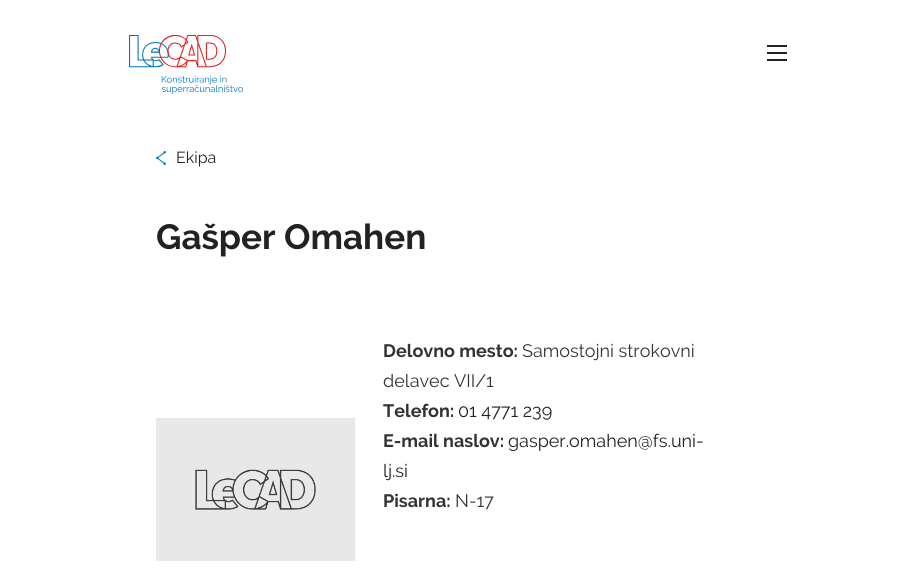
import math
import cairo



def draw_image(context, path, x, y, w, h):
    context.save()
    context.set_source_surface(cairo.ImageSurface.create_from_png(path), x, y)
    context.rectangle(x, y, w, h)
    context.fill()
    context.restore()


def draw(context):
    context.set_source_rgb(1, 1, 1)
    context.paint()
    draw_image(context, "images/1.png", 129, 35, 114, 59)
    context.set_source_rgb(34 / 255, 34 / 255, 34 / 255)
    context.rectangle(767, 45, 20, 2)
    context.fill()
    context.rectangle(767, 52, 20, 2)
    context.fill()
    context.rectangle(767, 59, 20, 2)
    context.fill()
    draw_image(context, "images/2.png", 156, 151, 10, 14)
    draw_image(context, "images/3.png", 156, 418, 199, 143)
    context.select_font_face("Raleway")
    context.set_font_size(16)
    context.move_to(176, 163)
    context.show_text("Ekipa")
    context.select_font_face("Raleway", cairo.FontSlant.NORMAL, cairo.FontWeight.BOLD)
    context.set_font_size(35)
    context.move_to(156, 249)
    context.show_text("Gašper Omahen")
    context.set_font_size(18)
    context.set_source_rgb(51 / 255, 51 / 255, 51 / 255)
    context.move_to(383, 357)
    context.show_text("Delovno mesto:")
    context.select_font_face("Raleway")
    context.move_to(522, 357)
    context.show_text("Samostojni strokovni")
    context.move_to(383, 387)
    context.show_text("delavec VII/1")
    context.select_font_face("Raleway", cairo.FontSlant.NORMAL, cairo.FontWeight.BOLD)
    context.move_to(383, 417)
    context.show_text("Telefon:")
    context.select_font_face("Raleway")
    context.set_source_rgb(34 / 255, 34 / 255, 34 / 255)
    context.move_to(458, 417)
    context.show_text("01 4771 239")
    context.select_font_face("Raleway", cairo.FontSlant.NORMAL, cairo.FontWeight.BOLD)
    context.set_source_rgb(51 / 255, 51 / 255, 51 / 255)
    context.move_to(383, 447)
    context.show_text("E-mail naslov:")
    context.select_font_face("Raleway")
    context.set_source_rgb(34 / 255, 34 / 255, 34 / 255)
    context.move_to(508, 447)
    context.show_text("gasper.omahen@fs.uni-")
    context.move_to(383, 477)
    context.show_text("lj.si")
    context.select_font_face("Raleway", cairo.FontSlant.NORMAL, cairo.FontWeight.BOLD)
    context.set_source_rgb(51 / 255, 51 / 255, 51 / 255)
    context.move_to(383, 507)
    context.show_text("Pisarna:")
    context.select_font_face("Raleway")
    context.move_to(455, 507)
    context.show_text("N-17")


surface = cairo.ImageSurface(cairo.Format.RGB24, 911, 583)
context = cairo.Context(surface)
options = cairo.FontOptions()
options.set_hint_metrics(cairo.HintMetrics.OFF)
options.set_hint_style(cairo.HintStyle.NONE)
context.set_font_options(options)
context.set_miter_limit(4)
draw(context)
surface.write_to_png("out.png")
